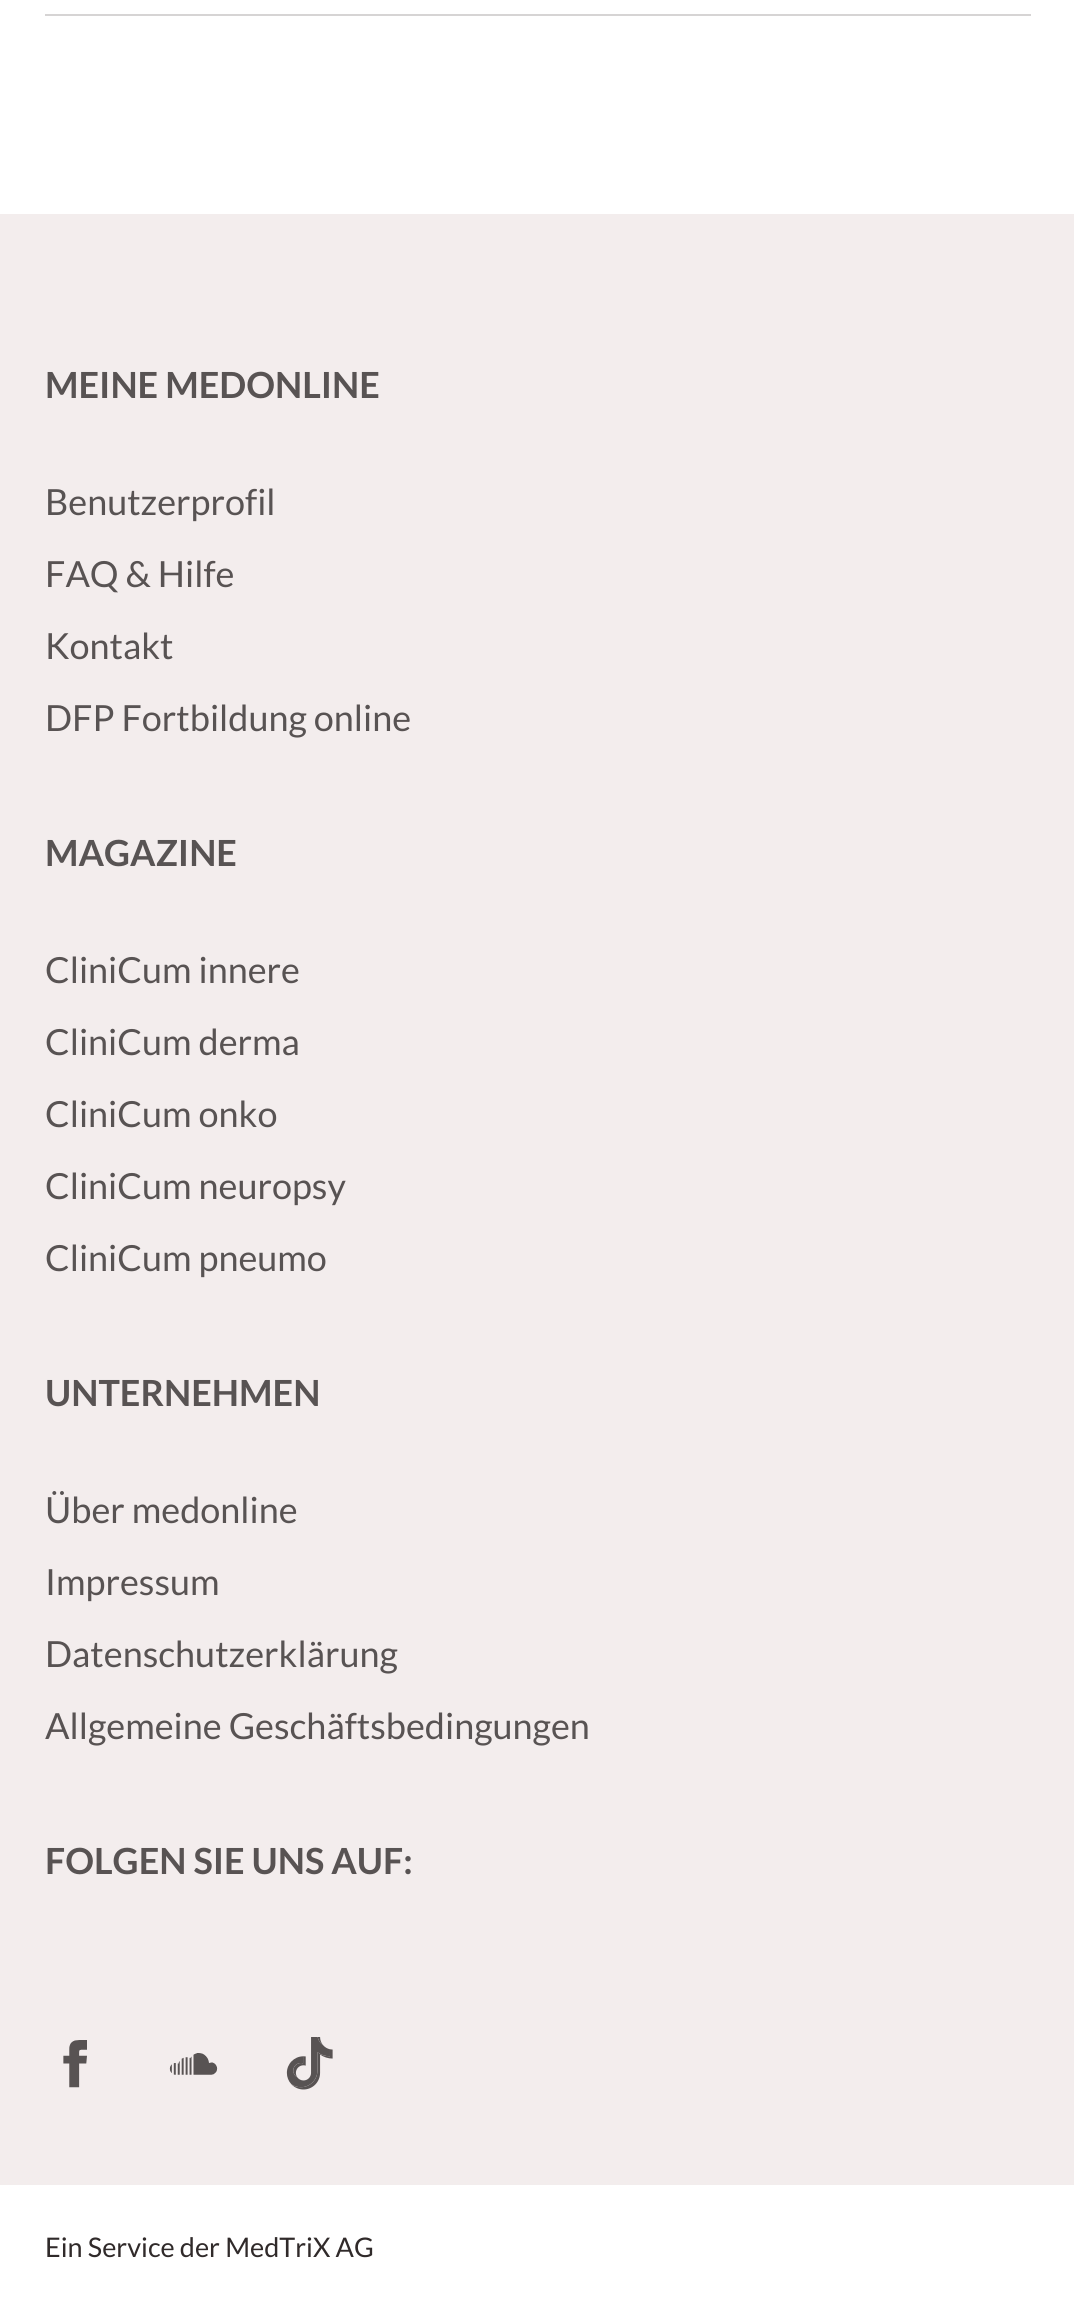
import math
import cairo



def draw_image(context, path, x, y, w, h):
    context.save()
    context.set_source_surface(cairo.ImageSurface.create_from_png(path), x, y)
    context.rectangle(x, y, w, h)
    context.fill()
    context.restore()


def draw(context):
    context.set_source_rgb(1, 1, 1)
    context.paint()
    context.set_source_rgb(214 / 255, 212 / 255, 212 / 255)
    context.rectangle(45, 14, 986, 2)
    context.fill()
    context.set_source_rgb(243 / 255, 237 / 255, 237 / 255)
    context.rectangle(0, 214, 1074, 1971)
    context.fill()
    draw_image(context, "images/1.png", 63, 2040, 24, 48)
    draw_image(context, "images/2.png", 169, 2053, 49, 22)
    draw_image(context, "images/3.png", 286, 2037, 47, 53)
    context.select_font_face("Lato", cairo.FontSlant.NORMAL, cairo.FontWeight.BOLD)
    context.set_font_size(36)
    context.set_source_rgb(88 / 255, 83 / 255, 83 / 255)
    context.move_to(45, 398)
    context.show_text("MEINE MEDONLINE")
    context.select_font_face("Lato")
    context.move_to(45, 515)
    context.show_text("Benutzerprofil")
    context.move_to(45, 587)
    context.show_text("FAQ & Hilfe")
    context.move_to(45, 659)
    context.show_text("Kontakt")
    context.move_to(45, 731)
    context.show_text("DFP Fortbildung online")
    context.select_font_face("Lato", cairo.FontSlant.NORMAL, cairo.FontWeight.BOLD)
    context.move_to(45, 866)
    context.show_text("MAGAZINE")
    context.select_font_face("Lato")
    context.move_to(45, 983)
    context.show_text("CliniCum innere")
    context.move_to(45, 1055)
    context.show_text("CliniCum derma")
    context.move_to(45, 1127)
    context.show_text("CliniCum onko")
    context.move_to(45, 1199)
    context.show_text("CliniCum neuropsy")
    context.move_to(45, 1271)
    context.show_text("CliniCum pneumo")
    context.select_font_face("Lato", cairo.FontSlant.NORMAL, cairo.FontWeight.BOLD)
    context.move_to(45, 1406)
    context.show_text("UNTERNEHMEN")
    context.select_font_face("Lato")
    context.move_to(45, 1523)
    context.show_text("Über medonline")
    context.move_to(45, 1595)
    context.show_text("Impressum")
    context.move_to(45, 1667)
    context.show_text("Datenschutzerklärung")
    context.move_to(45, 1739)
    context.show_text("Allgemeine Geschäftsbedingungen")
    context.select_font_face("Lato", cairo.FontSlant.NORMAL, cairo.FontWeight.BOLD)
    context.move_to(45, 1874)
    context.show_text("FOLGEN SIE UNS AUF:")
    context.select_font_face("Lato")
    context.set_font_size(27)
    context.set_source_rgb(48 / 255, 42 / 255, 42 / 255)
    context.move_to(45, 2257)
    context.show_text("Ein Service der MedTriX AG")


surface = cairo.ImageSurface(cairo.Format.RGB24, 1074, 2310)
context = cairo.Context(surface)
options = cairo.FontOptions()
options.set_hint_metrics(cairo.HintMetrics.OFF)
options.set_hint_style(cairo.HintStyle.NONE)
context.set_font_options(options)
context.set_miter_limit(4)
draw(context)
surface.write_to_png("out.png")
